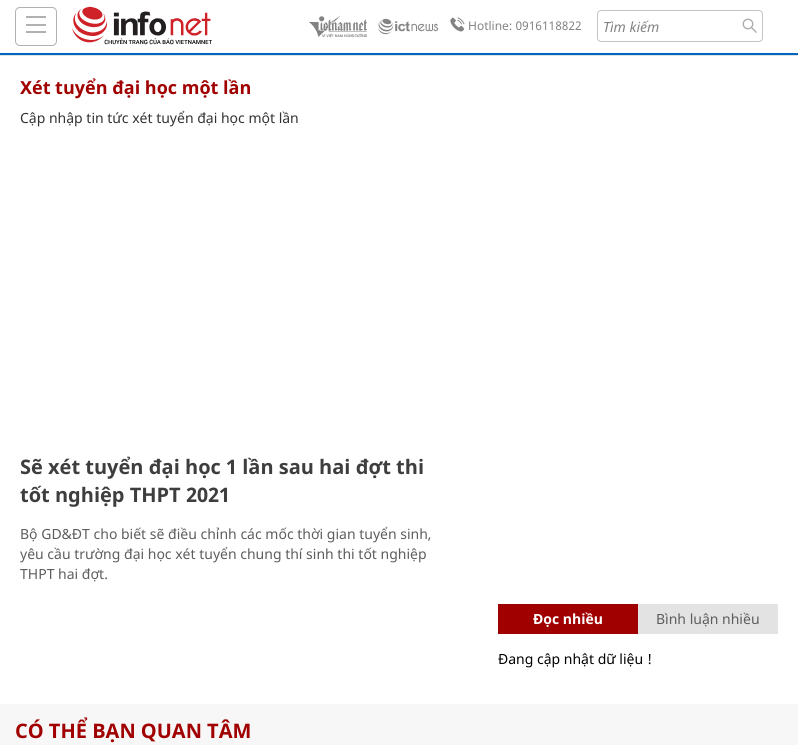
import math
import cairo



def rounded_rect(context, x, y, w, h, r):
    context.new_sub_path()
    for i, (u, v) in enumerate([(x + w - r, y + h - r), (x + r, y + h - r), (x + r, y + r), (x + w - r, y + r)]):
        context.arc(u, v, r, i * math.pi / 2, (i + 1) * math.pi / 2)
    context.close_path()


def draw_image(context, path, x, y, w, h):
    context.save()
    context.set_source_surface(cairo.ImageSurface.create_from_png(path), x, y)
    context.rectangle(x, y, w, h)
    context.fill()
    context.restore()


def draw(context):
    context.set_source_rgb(1, 1, 1)
    context.paint()
    context.set_source_rgb(226 / 255, 226 / 255, 226 / 255)
    context.rectangle(0, 55, 798, 1)
    context.fill()
    context.set_source_rgb(0, 101 / 255, 191 / 255)
    context.rectangle(0, 53, 798, 2)
    context.fill()
    rounded_rect(context, 15.5, 7.5, 41, 38, 4.5)
    context.set_source_rgb(177 / 255, 177 / 255, 177 / 255)
    context.set_line_width(1)
    context.stroke()
    context.rectangle(26, 16, 20, 2)
    context.fill()
    context.rectangle(26, 24, 20, 2)
    context.fill()
    context.rectangle(26, 31, 20, 2)
    context.fill()
    draw_image(context, "images/1.png", 72, 6, 140, 39)
    draw_image(context, "images/2.png", 309, 15, 59, 23)
    draw_image(context, "images/3.png", 378, 18, 60, 17)
    draw_image(context, "images/4.png", 450, 17, 15, 15)
    rounded_rect(context, 597.5, 10.5, 165, 31, 3.5)
    context.set_source_rgb(196 / 255, 196 / 255, 196 / 255)
    context.stroke()
    draw_image(context, "images/5.png", 742, 18, 15, 15)
    context.set_source_rgb(161 / 255, 0, 0)
    context.rectangle(498, 604, 140, 30)
    context.fill()
    context.set_source_rgb(227 / 255, 227 / 255, 227 / 255)
    context.rectangle(638, 604, 140, 30)
    context.fill()
    context.set_source_rgb(247 / 255, 247 / 255, 247 / 255)
    context.rectangle(0, 704, 798, 41)
    context.fill()
    context.select_font_face("Noto Sans")
    context.set_font_size(12)
    context.set_source_rgb(131 / 255, 131 / 255, 131 / 255)
    context.move_to(468, 30)
    context.show_text("Hotline: 0916118822")
    context.select_font_face("Noto Sans", cairo.FontSlant.ITALIC)
    context.set_font_size(14)
    context.move_to(603, 32)
    context.show_text("Tìm kiếm")
    context.select_font_face("Noto Sans", cairo.FontSlant.NORMAL, cairo.FontWeight.BOLD)
    context.set_font_size(18)
    context.set_source_rgb(161 / 255, 0, 0)
    context.move_to(20, 94)
    context.show_text("X")
    context.select_font_face("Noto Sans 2", cairo.FontSlant.NORMAL, cairo.FontWeight.BOLD)
    context.move_to(32, 94)
    context.show_text("ét tuyển đại học một lần")
    context.select_font_face("Noto Sans")
    context.set_font_size(14)
    context.set_source_rgb(51 / 255, 51 / 255, 51 / 255)
    context.move_to(20, 123)
    context.show_text("Cập nhập tin tức xét tuyển đại học một lần")
    context.select_font_face("Noto Sans 2", cairo.FontSlant.NORMAL, cairo.FontWeight.BOLD)
    context.set_font_size(20)
    context.set_source_rgb(62 / 255, 62 / 255, 62 / 255)
    context.move_to(20, 474)
    context.show_text("Sẽ xét tuyển đại học 1 lần sau hai đợt thi")
    context.move_to(20, 502)
    context.show_text("tốt nghiệp THPT 2021")
    context.select_font_face("Noto Sans")
    context.set_font_size(14)
    context.set_source_rgb(93 / 255, 93 / 255, 93 / 255)
    context.move_to(20, 539)
    context.show_text("Bộ GD&ĐT cho biết sẽ điều chỉnh các mốc thời gian tuyển sinh,")
    context.move_to(20, 559)
    context.show_text("yêu cầu trường đại học xét tuyển chung thí sinh thi tốt nghiệp")
    context.move_to(20, 579)
    context.show_text("THPT hai đợt.")
    context.select_font_face("Noto Sans 2", cairo.FontSlant.NORMAL, cairo.FontWeight.BOLD)
    context.set_source_rgb(1, 1, 1)
    context.move_to(533, 624)
    context.show_text("Đọc nhiều")
    context.select_font_face("Noto Sans")
    context.set_source_rgb(93 / 255, 93 / 255, 93 / 255)
    context.move_to(656, 624)
    context.show_text("Bình luận nhiều")
    context.set_source_rgb(0, 0, 0)
    context.move_to(498, 664)
    context.show_text("Đang cập nhật dữ liệu !")
    context.select_font_face("Noto Sans 2", cairo.FontSlant.NORMAL, cairo.FontWeight.BOLD)
    context.set_font_size(20)
    context.set_source_rgb(161 / 255, 0, 0)
    context.move_to(15, 738)
    context.show_text("CÓ THỂ BẠN QUAN TÂM")


surface = cairo.ImageSurface(cairo.Format.RGB24, 798, 745)
context = cairo.Context(surface)
options = cairo.FontOptions()
options.set_hint_metrics(cairo.HintMetrics.OFF)
options.set_hint_style(cairo.HintStyle.NONE)
context.set_font_options(options)
context.set_miter_limit(4)
draw(context)
surface.write_to_png("out.png")
